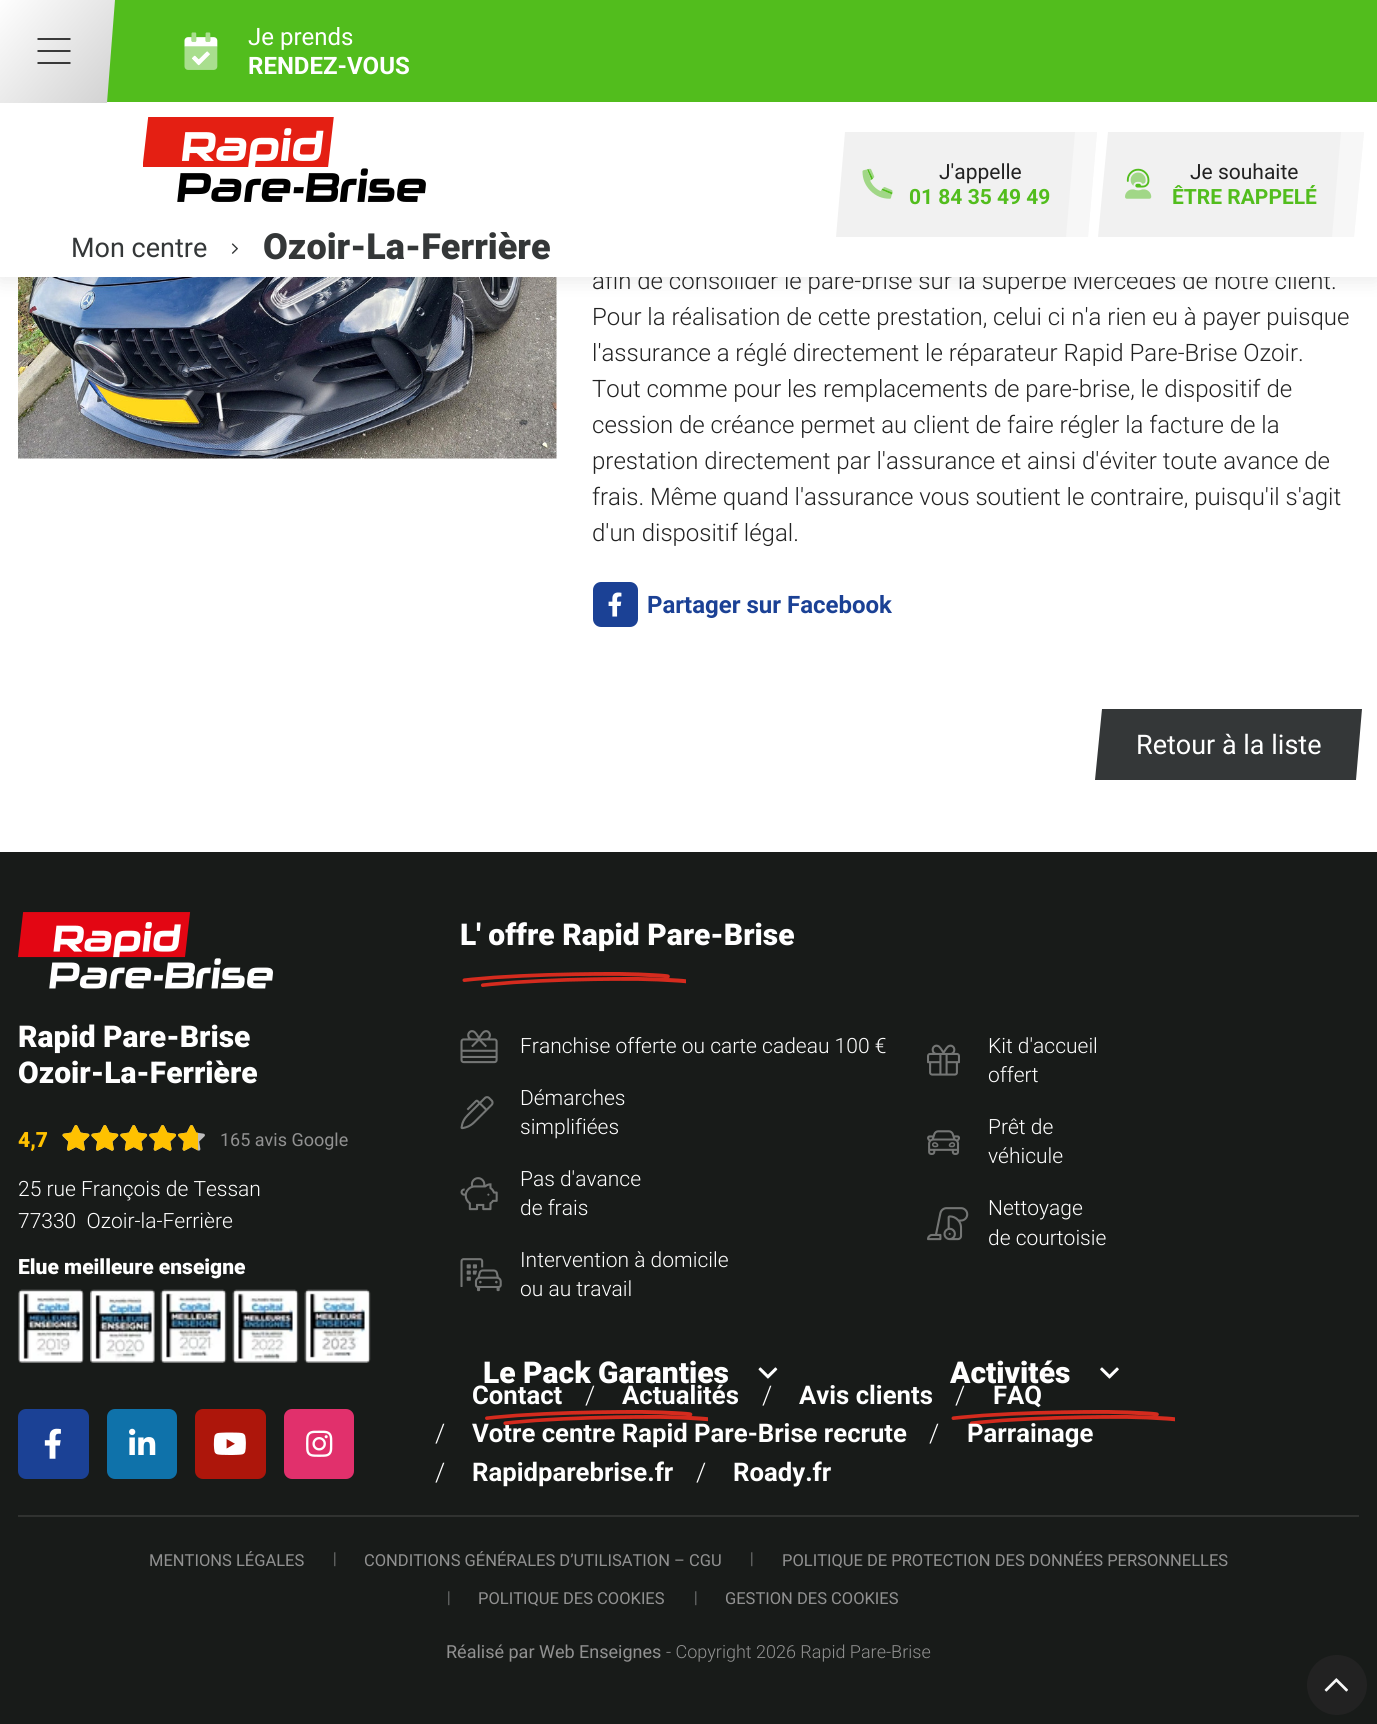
import math
import cairo



def rounded_rect(context, x, y, w, h, r):
    context.new_sub_path()
    for i, (u, v) in enumerate([(x + w - r, y + h - r), (x + r, y + h - r), (x + r, y + r), (x + w - r, y + r)]):
        context.arc(u, v, r, i * math.pi / 2, (i + 1) * math.pi / 2)
    context.close_path()


def draw_shadow(context, x, y, w, h, r, blur, alpha):
    context.push_group_with_content(cairo.Content.ALPHA)
    context.set_operator(cairo.Operator.SOURCE)
    for i in range(15, -16, -2):
        e = blur * i / 6
        if min(w, h) + 2 * e > 0:
            context.set_source_rgba(0, 0, 0, alpha * math.erfc((i - 1) / 8.5) / 2)
            rounded_rect(context, x - e, y - e, w + 2 * e, h + 2 * e, max(0, min(r + e + blur * .6, min(w, h) / 2 + e)))
            context.fill()
    context.mask(context.pop_group())


def draw_image(context, path, x, y, w, h):
    context.save()
    context.set_source_surface(cairo.ImageSurface.create_from_png(path), x, y)
    context.rectangle(x, y, w, h)
    context.fill()
    context.restore()


def draw(context):
    context.set_source_rgb(1, 1, 1)
    context.paint()
    draw_image(context, "images/9.png", 18, 277, 539, 182)
    context.set_source_rgb(0, 0, 0)
    draw_shadow(context, 0, 3, 1377, 276, 0, 10, 0.1)
    context.set_source_rgb(82 / 255, 189 / 255, 29 / 255)
    context.rectangle(107, 0, 1270, 102)
    context.fill()
    draw_image(context, "images/2.png", 184, 37, 34, 29)
    draw_image(context, "images/1.png", 184, 32, 34, 38)
    context.set_source_rgb(24 / 255, 27 / 255, 25 / 255)
    context.rectangle(0, 852, 1377, 872)
    context.fill()
    context.set_source_rgb(34 / 255, 34 / 255, 34 / 255)
    context.arc(1337, 1685, 30, 0, 2 * math.pi)
    context.fill()
    draw_image(context, "images/8.png", 1324, 1678, 24, 14)
    context.set_source_rgb(27 / 255, 65 / 255, 149 / 255)
    rounded_rect(context, 593, 582, 45, 45, 8)
    context.fill()
    draw_image(context, "images/10.png", 608, 592, 14, 25)
    context.set_source_rgb(52 / 255, 55 / 255, 56 / 255)
    context.new_path()
    context.move_to(1102, 709)
    context.line_to(1362, 709)
    context.line_to(1356, 780)
    context.line_to(1095, 780)
    context.close_path()
    context.fill()
    draw_image(context, "images/11.png", 18, 912, 255, 77)
    draw_image(context, "images/12.png", 62, 1125, 143, 26)
    draw_image(context, "images/13.png", 62, 1125, 136, 26)
    draw_image(context, "images/14.png", 18, 1289, 66, 74)
    draw_image(context, "images/15.png", 90, 1289, 65, 74)
    draw_image(context, "images/16.png", 160, 1289, 67, 74)
    draw_image(context, "images/17.png", 232, 1289, 67, 74)
    draw_image(context, "images/18.png", 304, 1289, 67, 74)
    context.set_source_rgb(27 / 255, 65 / 255, 149 / 255)
    rounded_rect(context, 18, 1409, 71, 70, 8)
    context.fill()
    draw_image(context, "images/19.png", 44, 1428, 17, 31)
    context.set_source_rgb(15 / 255, 114 / 255, 170 / 255)
    rounded_rect(context, 107, 1409, 70, 70, 8)
    context.fill()
    draw_image(context, "images/20.png", 129, 1428, 27, 27)
    context.set_source_rgb(173 / 255, 22 / 255, 11 / 255)
    rounded_rect(context, 195, 1409, 71, 70, 8)
    context.fill()
    draw_image(context, "images/21.png", 213, 1432, 33, 23)
    context.set_source_rgb(225 / 255, 48 / 255, 108 / 255)
    rounded_rect(context, 284, 1409, 70, 70, 8)
    context.fill()
    draw_image(context, "images/22.png", 306, 1430, 27, 27)
    draw_image(context, "images/23.png", 462, 972, 224, 15)
    draw_image(context, "images/24.png", 460, 1030, 38, 34)
    draw_image(context, "images/25.png", 460, 1096, 34, 34)
    draw_image(context, "images/26.png", 460, 1177, 38, 34)
    draw_image(context, "images/27.png", 460, 1258, 42, 34)
    draw_image(context, "images/28.png", 927, 1044, 33, 32)
    draw_image(context, "images/29.png", 927, 1130, 33, 25)
    draw_image(context, "images/30.png", 927, 1207, 42, 34)
    draw_image(context, "images/31.png", 758, 1367, 20, 12)
    draw_image(context, "images/32.png", 485, 1410, 223, 15)
    draw_image(context, "images/33.png", 1100, 1367, 19, 12)
    draw_image(context, "images/23.png", 951, 1410, 224, 15)
    context.set_source_rgb(48 / 255, 50 / 255, 48 / 255)
    context.rectangle(18, 1515, 1341, 2)
    context.fill()
    context.select_font_face("Roboto")
    context.set_font_size(24)
    context.set_source_rgb(1, 1, 1)
    context.move_to(248, 45)
    context.show_text("Je prends")
    context.select_font_face("Roboto", cairo.FontSlant.NORMAL, cairo.FontWeight.BOLD)
    context.move_to(248, 74)
    context.show_text("RENDEZ-VOUS")
    context.select_font_face("Roboto Light")
    context.set_source_rgb(34 / 255, 34 / 255, 34 / 255)
    context.move_to(592, 289)
    context.show_text("afin de consolider le pare-brise sur la superbe Mercedes de notre client.")
    context.set_source_rgb(1, 1, 1)
    context.rectangle(0, 102, 1377, 175)
    context.fill()
    context.set_source_rgb(241 / 255, 241 / 255, 241 / 255)
    context.new_path()
    context.move_to(1108, 132)
    context.line_to(1364, 132)
    context.line_to(1354, 237)
    context.line_to(1098, 237)
    context.close_path()
    context.fill()
    context.set_source_rgba(1, 1, 1, 0.4)
    context.new_path()
    context.move_to(1341, 132)
    context.line_to(1364, 132)
    context.line_to(1354, 237)
    context.line_to(1332, 237)
    context.close_path()
    context.fill()
    draw_image(context, "images/4.png", 1126, 168, 24, 20)
    draw_image(context, "images/5.png", 1125, 172, 27, 27)
    context.select_font_face("Roboto", cairo.FontSlant.NORMAL, cairo.FontWeight.BOLD)
    context.set_font_size(21)
    context.set_source_rgb(82 / 255, 189 / 255, 29 / 255)
    context.move_to(1172, 204)
    context.show_text("ÊTRE RAPPELÉ")
    context.select_font_face("Roboto")
    context.set_source_rgb(34 / 255, 34 / 255, 34 / 255)
    context.move_to(1190, 179)
    context.show_text("Je souhaite")
    context.set_source_rgb(241 / 255, 241 / 255, 241 / 255)
    context.new_path()
    context.move_to(845, 132)
    context.line_to(1097, 132)
    context.line_to(1088, 237)
    context.line_to(836, 237)
    context.close_path()
    context.fill()
    context.set_source_rgba(1, 1, 1, 0.4)
    context.new_path()
    context.move_to(1075, 132)
    context.line_to(1097, 132)
    context.line_to(1088, 237)
    context.line_to(1066, 237)
    context.close_path()
    context.fill()
    context.set_source_rgb(82 / 255, 189 / 255, 29 / 255)
    context.new_path()
    context.move_to(867, 169.5)
    context.line_to(868.5, 169)
    context.line_to(873, 178.5)
    context.line_to(871.5, 180)
    context.close_path()
    context.move_to(882.5, 188.5)
    context.line_to(892.5, 192.5)
    context.line_to(892, 194.5)
    context.line_to(881.5, 190)
    context.close_path()
    context.fill()
    draw_image(context, "images/3.png", 862, 168, 31, 31)
    context.select_font_face("Roboto", cairo.FontSlant.NORMAL, cairo.FontWeight.BOLD)
    context.move_to(909, 204)
    context.show_text("01 84 35 49 49")
    context.select_font_face("Roboto")
    context.set_source_rgb(34 / 255, 34 / 255, 34 / 255)
    context.move_to(939, 179)
    context.show_text("J'appelle")
    gradient = cairo.LinearGradient(-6, 1.6, 108, 101)
    gradient.add_color_stop_rgba(0, 1, 1, 1, 1)
    gradient.add_color_stop_rgba(1, 211 / 255, 211 / 255, 211 / 255, 1)
    context.set_source(gradient)
    context.new_path()
    context.move_to(-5, 0)
    context.line_to(115, 0)
    context.line_to(107, 103)
    context.line_to(-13, 103)
    context.close_path()
    context.fill()
    context.new_path()
    context.move_to(37.5, 39)
    context.line_to(70.5, 39)
    context.move_to(37.5, 51)
    context.line_to(70.5, 51)
    context.move_to(37.5, 63)
    context.line_to(70.5, 63)
    context.set_source_rgb(0, 0, 0)
    context.set_line_width(1.5)
    context.stroke()
    context.select_font_face("Roboto Black")
    context.set_font_size(36)
    context.set_source_rgb(52 / 255, 55 / 255, 56 / 255)
    context.move_to(263, 259)
    context.show_text("Ozoir-La-Ferrière")
    draw_image(context, "images/7.png", 231, 243, 7, 11)
    context.select_font_face("Roboto")
    context.set_font_size(27)
    context.move_to(71, 257)
    context.show_text("Mon centre")
    draw_image(context, "images/6.png", 143, 117, 283, 85)
    context.select_font_face("Roboto Light")
    context.set_font_size(24)
    context.set_source_rgb(34 / 255, 34 / 255, 34 / 255)
    context.move_to(592, 325)
    context.show_text("Pour la réalisation de cette prestation, celui ci n'a rien eu à payer puisque")
    context.move_to(592, 361)
    context.show_text("l'assurance a réglé directement le réparateur Rapid Pare-Brise Ozoir.")
    context.move_to(592, 397)
    context.show_text("Tout comme pour les remplacements de pare-brise, le dispositif de")
    context.move_to(592, 433)
    context.show_text("cession de créance permet au client de faire régler la facture de la")
    context.move_to(592, 469)
    context.show_text("prestation directement par l'assurance et ainsi d'éviter toute avance de")
    context.move_to(592, 505)
    context.show_text("frais. Même quand l'assurance vous soutient le contraire, puisqu'il s'agit")
    context.move_to(592, 541)
    context.show_text("d'un dispositif légal.")
    context.select_font_face("Roboto", cairo.FontSlant.NORMAL, cairo.FontWeight.BOLD)
    context.set_source_rgb(27 / 255, 65 / 255, 149 / 255)
    context.move_to(647, 613)
    context.show_text("Partager sur Facebook")
    context.select_font_face("Roboto")
    context.set_font_size(27)
    context.set_source_rgb(1, 1, 1)
    context.move_to(1136, 754)
    context.show_text("Retour à la liste")
    context.select_font_face("Roboto Black")
    context.set_font_size(30)
    context.move_to(18, 1047)
    context.show_text("Rapid Pare-Brise")
    context.move_to(18, 1083)
    context.show_text("Ozoir-La-Ferrière")
    context.set_font_size(21)
    context.set_source_rgb(1, 193 / 255, 0)
    context.move_to(18, 1147)
    context.show_text("4,7")
    context.select_font_face("Roboto")
    context.set_font_size(18)
    context.set_source_rgb(145 / 255, 145 / 255, 145 / 255)
    context.move_to(220, 1146)
    context.show_text("165 avis Google")
    context.select_font_face("Roboto Light")
    context.set_font_size(21)
    context.set_source_rgb(1, 1, 1)
    context.move_to(18, 1196)
    context.show_text("25 rue François de Tessan")
    context.move_to(18, 1228)
    context.show_text("77330  Ozoir-la-Ferrière")
    context.select_font_face("Roboto Black")
    context.move_to(18, 1274)
    context.show_text("Elue meilleure enseigne")
    context.set_font_size(30)
    context.move_to(460, 945)
    context.show_text("L' offre Rapid Pare-Brise")
    context.select_font_face("Roboto Light")
    context.set_font_size(21)
    context.move_to(520, 1053)
    context.show_text("Franchise offerte ou carte cadeau 100 €")
    context.move_to(520, 1105)
    context.show_text("Démarches")
    context.move_to(520, 1134)
    context.show_text("simplifiées")
    context.move_to(520, 1186)
    context.show_text("Pas d'avance")
    context.move_to(520, 1215)
    context.show_text("de frais")
    context.move_to(520, 1267)
    context.show_text("Intervention à domicile")
    context.move_to(520, 1296)
    context.show_text("ou au travail")
    context.move_to(988, 1053)
    context.show_text("Kit d'accueil")
    context.move_to(988, 1082)
    context.show_text("offert")
    context.move_to(988, 1134)
    context.show_text("Prêt de")
    context.move_to(988, 1163)
    context.show_text("véhicule")
    context.move_to(988, 1215)
    context.show_text("Nettoyage")
    context.move_to(988, 1245)
    context.show_text("de courtoisie")
    context.select_font_face("Roboto Black")
    context.set_font_size(30)
    context.move_to(483, 1383)
    context.show_text("Le Pack Garanties")
    context.move_to(950, 1383)
    context.show_text("Activités")
    context.select_font_face("Roboto", cairo.FontSlant.NORMAL, cairo.FontWeight.BOLD)
    context.set_font_size(25.7)
    context.move_to(472, 1404)
    context.show_text("Contact")
    context.select_font_face("Roboto Light")
    context.move_to(585, 1404)
    context.show_text("/")
    context.select_font_face("Roboto", cairo.FontSlant.NORMAL, cairo.FontWeight.BOLD)
    context.move_to(622, 1404)
    context.show_text("Actualités")
    context.select_font_face("Roboto Light")
    context.move_to(762, 1404)
    context.show_text("/")
    context.select_font_face("Roboto", cairo.FontSlant.NORMAL, cairo.FontWeight.BOLD)
    context.move_to(799, 1404)
    context.show_text("Avis clients")
    context.select_font_face("Roboto Light")
    context.move_to(955, 1404)
    context.show_text("/")
    context.select_font_face("Roboto", cairo.FontSlant.NORMAL, cairo.FontWeight.BOLD)
    context.move_to(993, 1404)
    context.show_text("FAQ")
    context.select_font_face("Roboto Light")
    context.move_to(435, 1442)
    context.show_text("/")
    context.select_font_face("Roboto", cairo.FontSlant.NORMAL, cairo.FontWeight.BOLD)
    context.move_to(472, 1442)
    context.show_text("Votre centre Rapid Pare-Brise recrute")
    context.select_font_face("Roboto Light")
    context.move_to(929, 1442)
    context.show_text("/")
    context.select_font_face("Roboto", cairo.FontSlant.NORMAL, cairo.FontWeight.BOLD)
    context.move_to(967, 1442)
    context.show_text("Parrainage")
    context.select_font_face("Roboto Light")
    context.move_to(435, 1481)
    context.show_text("/")
    context.select_font_face("Roboto", cairo.FontSlant.NORMAL, cairo.FontWeight.BOLD)
    context.move_to(472, 1481)
    context.show_text("Rapidparebrise.fr")
    context.select_font_face("Roboto Light")
    context.move_to(696, 1481)
    context.show_text("/")
    context.select_font_face("Roboto", cairo.FontSlant.NORMAL, cairo.FontWeight.BOLD)
    context.move_to(733, 1481)
    context.show_text("Roady.fr")
    context.select_font_face("Roboto")
    context.set_font_size(16.5)
    context.set_source_rgb(145 / 255, 145 / 255, 145 / 255)
    context.move_to(149, 1566)
    context.show_text("MENTIONS LÉGALES")
    context.select_font_face("Roboto Light")
    context.move_to(333, 1564)
    context.show_text("|")
    context.select_font_face("Roboto")
    context.move_to(364, 1566)
    context.show_text("CONDITIONS GÉNÉRALES D’UTILISATION – CGU")
    context.select_font_face("Roboto Light")
    context.move_to(750, 1564)
    context.show_text("|")
    context.select_font_face("Roboto")
    context.move_to(782, 1566)
    context.show_text("POLITIQUE DE PROTECTION DES DONNÉES PERSONNELLES")
    context.select_font_face("Roboto Light")
    context.move_to(447, 1603)
    context.show_text("|")
    context.select_font_face("Roboto")
    context.move_to(478, 1604)
    context.show_text("POLITIQUE DES COOKIES")
    context.select_font_face("Roboto Light")
    context.move_to(694, 1603)
    context.show_text("|")
    context.select_font_face("Roboto")
    context.move_to(725, 1604)
    context.show_text("GESTION DES COOKIES")
    context.set_font_size(18)
    context.move_to(446, 1658)
    context.show_text("Réalisé par Web Enseignes")
    context.select_font_face("Roboto Light")
    context.move_to(666, 1658)
    context.show_text("- Copyright 2026 Rapid Pare-Brise")


surface = cairo.ImageSurface(cairo.Format.RGB24, 1377, 1724)
context = cairo.Context(surface)
options = cairo.FontOptions()
options.set_hint_metrics(cairo.HintMetrics.OFF)
options.set_hint_style(cairo.HintStyle.NONE)
context.set_font_options(options)
context.set_miter_limit(4)
draw(context)
surface.write_to_png("out.png")
